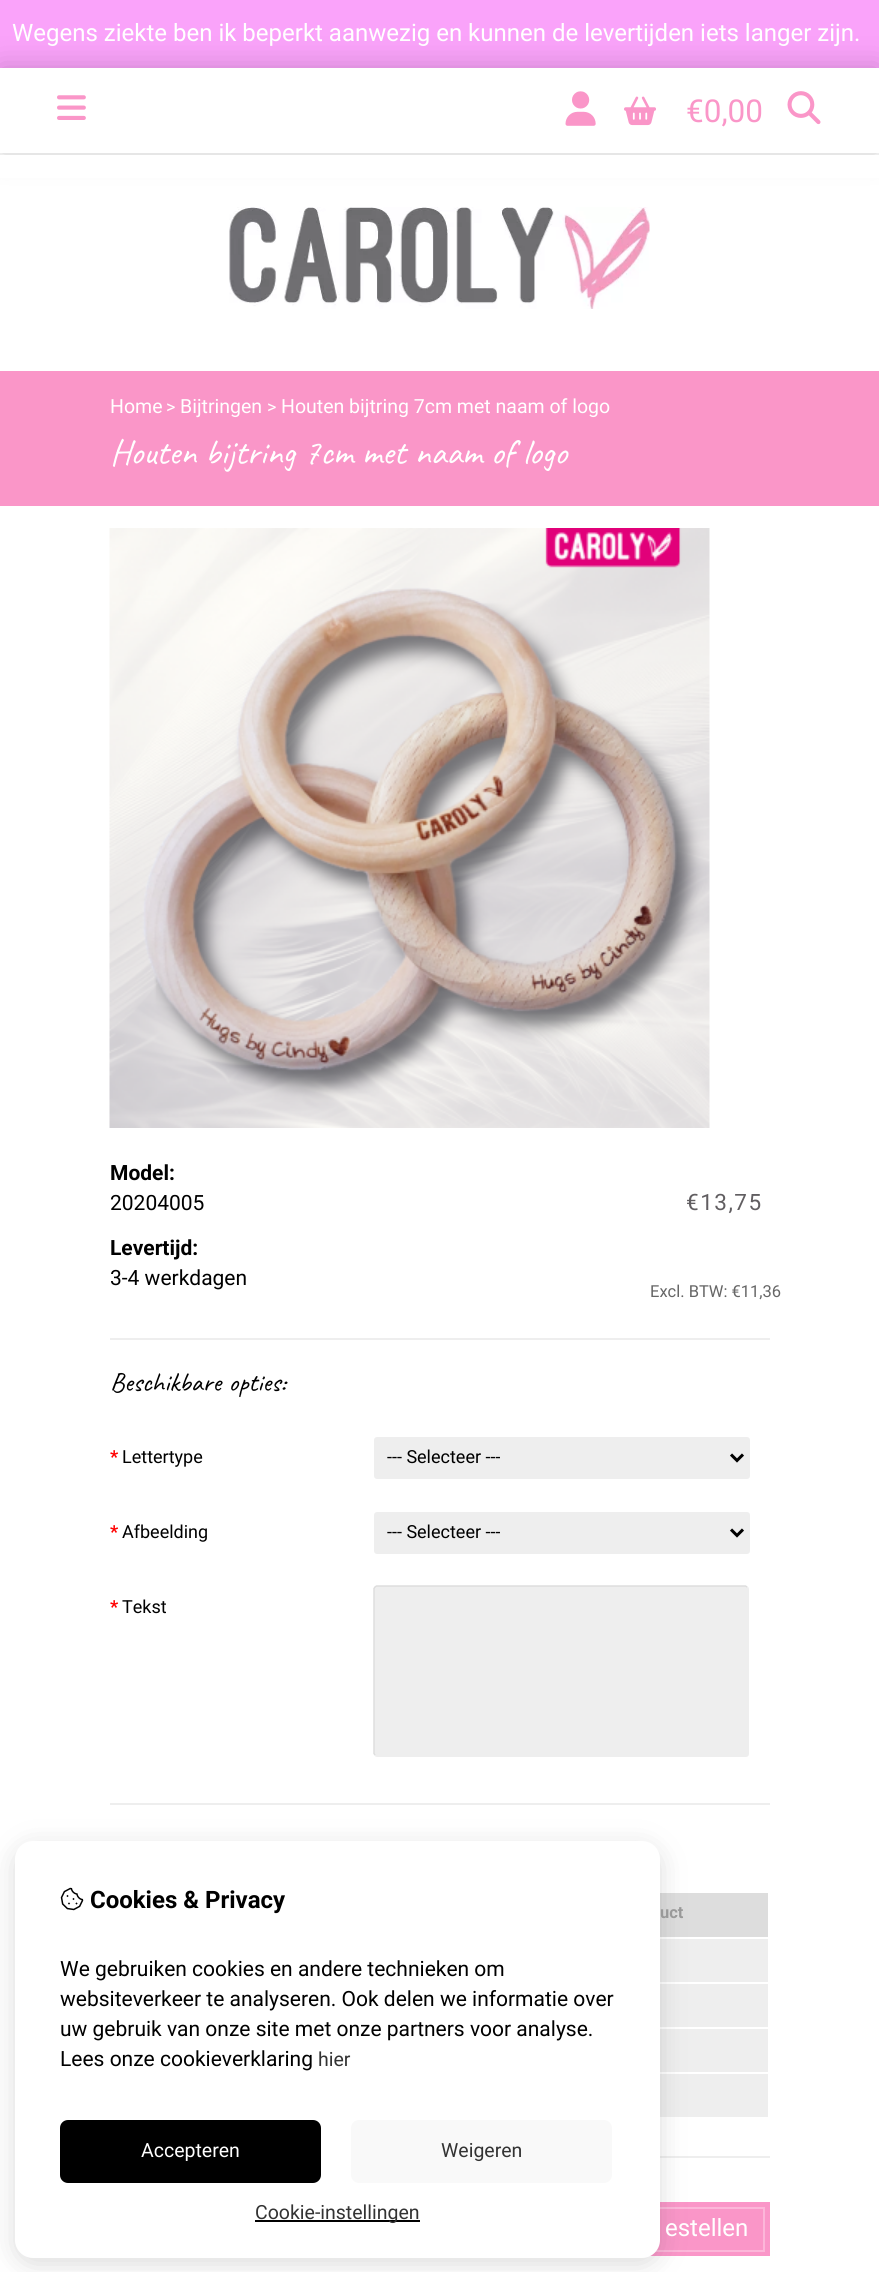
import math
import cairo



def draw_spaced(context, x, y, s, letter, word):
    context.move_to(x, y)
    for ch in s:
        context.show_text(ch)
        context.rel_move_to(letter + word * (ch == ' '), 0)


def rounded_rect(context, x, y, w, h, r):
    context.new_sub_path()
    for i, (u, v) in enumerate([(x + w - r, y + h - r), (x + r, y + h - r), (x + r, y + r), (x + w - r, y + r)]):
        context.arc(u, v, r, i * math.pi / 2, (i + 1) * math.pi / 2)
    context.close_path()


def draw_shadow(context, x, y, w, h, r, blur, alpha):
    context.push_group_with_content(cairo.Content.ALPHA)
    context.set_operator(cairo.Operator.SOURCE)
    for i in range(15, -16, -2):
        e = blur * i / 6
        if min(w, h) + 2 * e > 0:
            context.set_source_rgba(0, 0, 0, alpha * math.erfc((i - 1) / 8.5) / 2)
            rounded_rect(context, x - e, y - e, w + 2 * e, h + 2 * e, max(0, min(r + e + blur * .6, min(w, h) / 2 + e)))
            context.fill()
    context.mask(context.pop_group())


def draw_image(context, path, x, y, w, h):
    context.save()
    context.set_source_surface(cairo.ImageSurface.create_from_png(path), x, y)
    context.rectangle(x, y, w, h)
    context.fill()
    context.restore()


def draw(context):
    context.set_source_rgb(1, 1, 1)
    context.paint()
    context.set_source_rgb(250 / 255, 163 / 255, 250 / 255)
    context.rectangle(0, 0, 879, 68)
    context.fill()
    context.save()
    context.set_fill_rule(cairo.FillRule.EVEN_ODD)
    context.new_path()
    context.move_to(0, 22)
    context.line_to(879, 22)
    context.line_to(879, 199)
    context.line_to(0, 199)
    context.close_path()
    context.move_to(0, 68)
    context.line_to(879, 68)
    context.line_to(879, 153)
    context.line_to(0, 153)
    context.close_path()
    context.clip()
    context.set_source_rgb(0, 0, 0)
    draw_shadow(context, 0, 68, 879, 85, 0, 15, 0.2)
    context.restore()
    draw_image(context, "images/1.png", 57, 95, 29, 25)
    draw_image(context, "images/2.png", 565, 91, 31, 35)
    draw_image(context, "images/3.png", 624, 96, 32, 30)
    draw_image(context, "images/4.png", 787, 91, 34, 34)
    context.set_source_rgb(1, 1, 1)
    context.rectangle(0, 155, 879, 23)
    context.fill()
    draw_image(context, "images/5.png", 229, 207, 421, 102)
    context.set_source_rgb(250 / 255, 150 / 255, 200 / 255)
    context.rectangle(0, 371, 879, 135)
    context.fill()
    draw_image(context, "images/6.png", 109, 528, 601, 600)
    context.set_source_rgb(238 / 255, 238 / 255, 238 / 255)
    context.rectangle(110, 1338, 660, 2)
    context.fill()
    rounded_rect(context, 375, 1438, 374, 40, 2)
    context.fill_preserve()
    context.stroke()
    context.new_path()
    context.move_to(731, 1454.5)
    context.line_to(737, 1460.5)
    context.line_to(743, 1454.5)
    context.set_source_rgb(0, 0, 0)
    context.set_line_width(3)
    context.stroke()
    context.set_source_rgb(238 / 255, 238 / 255, 238 / 255)
    rounded_rect(context, 375, 1513, 374, 40, 2)
    context.fill_preserve()
    context.set_line_width(2)
    context.stroke()
    context.new_path()
    context.move_to(731, 1529.5)
    context.line_to(737, 1535.5)
    context.line_to(743, 1529.5)
    context.set_source_rgb(0, 0, 0)
    context.set_line_width(3)
    context.stroke()
    context.set_source_rgb(238 / 255, 238 / 255, 238 / 255)
    rounded_rect(context, 374, 1586, 375, 171, 3)
    context.fill()
    context.new_path()
    context.move_to(375, 1755)
    context.line_to(374, 1753.5)
    context.line_to(374, 1588.5)
    context.line_to(375, 1587)
    context.line_to(376.5, 1586)
    context.line_to(745.5, 1586)
    context.line_to(747, 1587)
    context.set_source_rgb(221 / 255, 221 / 255, 221 / 255)
    context.set_line_width(1.5)
    context.stroke()
    context.set_source_rgb(238 / 255, 238 / 255, 238 / 255)
    context.rectangle(110, 1803, 660, 2)
    context.fill()
    context.rectangle(660, 1939, 108, 178)
    context.fill()
    context.set_source_rgb(221 / 255, 221 / 255, 221 / 255)
    context.rectangle(660, 1893, 108, 44)
    context.fill()
    context.set_source_rgb(1, 1, 1)
    context.rectangle(660, 1982, 110, 2)
    context.fill()
    context.rectangle(660, 2027, 110, 2)
    context.fill()
    context.rectangle(660, 2072, 110, 2)
    context.fill()
    context.set_source_rgb(238 / 255, 238 / 255, 238 / 255)
    context.rectangle(660, 2156, 110, 2)
    context.fill()
    context.set_source_rgb(250 / 255, 150 / 255, 200 / 255)
    context.rectangle(650, 2202, 120, 54)
    context.fill()
    context.rectangle(595, 2208, 169, 43)
    context.set_source_rgb(252 / 255, 182 / 255, 217 / 255)
    context.set_line_width(2)
    context.stroke()
    context.set_source_rgb(76 / 255, 76 / 255, 76 / 255)
    draw_shadow(context, 15, 1847, 645, 417, 18, 13, 0.2)
    context.set_source_rgb(1, 1, 1)
    rounded_rect(context, 15, 1841, 645, 417, 18)
    context.fill()
    draw_image(context, "images/7.png", 60, 1887, 24, 24)
    context.set_source_rgb(0, 0, 0)
    rounded_rect(context, 60, 2120, 261, 63, 8)
    context.fill()
    context.set_source_rgb(249 / 255, 249 / 255, 249 / 255)
    rounded_rect(context, 351, 2120, 261, 63, 8)
    context.fill()
    context.set_source_rgb(0, 0, 0)
    context.rectangle(255, 2220, 165, 2)
    context.fill()
    context.select_font_face("Roboto")
    context.set_font_size(24)
    context.set_source_rgb(1, 1, 1)
    context.move_to(12, 41)
    context.show_text("Wegens ziekte ben ik beperkt aanwezig en kunnen de levertijden iets langer zijn.")
    context.set_font_size(31.5)
    context.set_source_rgb(250 / 255, 150 / 255, 200 / 255)
    context.move_to(686, 122)
    context.show_text("€0,00")
    context.set_font_size(19.5)
    context.set_source_rgb(1, 1, 1)
    context.move_to(110, 413)
    context.show_text("Home")
    context.set_font_size(18)
    context.move_to(166, 413)
    context.show_text(">")
    context.set_font_size(19.5)
    context.move_to(180, 413)
    context.show_text("Bijtringen")
    context.set_font_size(18)
    context.move_to(267, 413)
    context.show_text(">")
    context.set_font_size(19.5)
    context.move_to(281, 413)
    context.show_text("Houten bijtring 7cm met naam of logo")
    context.select_font_face("Caveat")
    context.set_font_size(36)
    context.move_to(110, 464)
    context.show_text("Houten bijtring 7cm met naam of logo")
    context.select_font_face("Roboto", cairo.FontSlant.NORMAL, cairo.FontWeight.BOLD)
    context.set_font_size(21)
    context.set_source_rgb(0, 0, 0)
    context.move_to(110, 1180)
    context.show_text("Model:")
    context.select_font_face("Roboto")
    context.move_to(110, 1210)
    context.show_text("20204005")
    context.select_font_face("Roboto", cairo.FontSlant.NORMAL, cairo.FontWeight.BOLD)
    context.move_to(110, 1255)
    context.show_text("Levertijd:")
    context.select_font_face("Roboto")
    context.move_to(110, 1285)
    context.show_text("3-4 werkdagen")
    context.set_font_size(22.5)
    context.set_source_rgb(97 / 255, 94 / 255, 97 / 255)
    draw_spaced(context, 686, 1210, "€13,75", 1.5, 0)
    context.set_font_size(16.5)
    context.set_source_rgb(102 / 255, 102 / 255, 102 / 255)
    context.move_to(650, 1297)
    context.show_text("Excl. BTW: €11,36")
    context.select_font_face("Caveat")
    context.set_font_size(27)
    context.set_source_rgb(0, 0, 0)
    draw_spaced(context, 110, 1391, "Beschikbare opties:", 0, 1)
    context.select_font_face("Roboto", cairo.FontSlant.NORMAL, cairo.FontWeight.BOLD)
    context.set_font_size(18)
    context.set_source_rgb(1, 0, 0)
    context.move_to(110, 1463)
    context.show_text("*")
    context.select_font_face("Roboto")
    context.set_source_rgb(0, 0, 0)
    context.move_to(122, 1463)
    context.show_text("Lettertype")
    context.move_to(387, 1463)
    context.show_text("--- Selecteer ---")
    context.select_font_face("Roboto", cairo.FontSlant.NORMAL, cairo.FontWeight.BOLD)
    context.set_source_rgb(1, 0, 0)
    context.move_to(110, 1538)
    context.show_text("*")
    context.select_font_face("Roboto")
    context.set_source_rgb(0, 0, 0)
    context.move_to(122, 1538)
    context.show_text("Afbeelding")
    context.move_to(387, 1538)
    context.show_text("--- Selecteer ---")
    context.select_font_face("Roboto", cairo.FontSlant.NORMAL, cairo.FontWeight.BOLD)
    context.set_source_rgb(1, 0, 0)
    context.move_to(110, 1613)
    context.show_text("*")
    context.select_font_face("Roboto")
    context.set_source_rgb(0, 0, 0)
    context.move_to(122, 1613)
    context.show_text("Tekst")
    context.select_font_face("Roboto", cairo.FontSlant.NORMAL, cairo.FontWeight.BOLD)
    context.set_font_size(16.5)
    context.set_source_rgb(153 / 255, 153 / 255, 153 / 255)
    context.move_to(660, 1918)
    context.show_text("uct")
    context.select_font_face("Roboto")
    context.set_font_size(24)
    context.set_source_rgb(1, 1, 1)
    context.move_to(665, 2236)
    context.show_text("estellen")
    context.select_font_face("Roboto", cairo.FontSlant.NORMAL, cairo.FontWeight.BOLD)
    context.set_source_rgb(0, 0, 0)
    context.move_to(90, 1908)
    context.show_text("Cookies & Privacy")
    context.select_font_face("Roboto")
    context.set_font_size(21)
    context.move_to(60, 1976)
    context.show_text("We gebruiken cookies en andere technieken om")
    context.move_to(60, 2006)
    context.show_text("websiteverkeer te analyseren. Ook delen we informatie over")
    context.move_to(60, 2036)
    context.show_text("uw gebruik van onze site met onze partners voor analyse.")
    context.move_to(60, 2066)
    context.show_text("Lees onze cookieverklaring")
    context.set_font_size(19.5)
    context.set_source_rgb(51 / 255, 51 / 255, 51 / 255)
    context.move_to(318, 2066)
    context.show_text("hier")
    context.set_source_rgb(1, 1, 1)
    context.move_to(141, 2157)
    context.show_text("Accepteren")
    context.set_source_rgb(51 / 255, 51 / 255, 51 / 255)
    context.move_to(441, 2157)
    context.show_text("Weigeren")
    context.move_to(255, 2219)
    context.show_text("Cookie-instellingen")


surface = cairo.ImageSurface(cairo.Format.RGB24, 879, 2272)
context = cairo.Context(surface)
options = cairo.FontOptions()
options.set_hint_metrics(cairo.HintMetrics.OFF)
options.set_hint_style(cairo.HintStyle.NONE)
context.set_font_options(options)
context.set_miter_limit(4)
draw(context)
surface.write_to_png("out.png")
